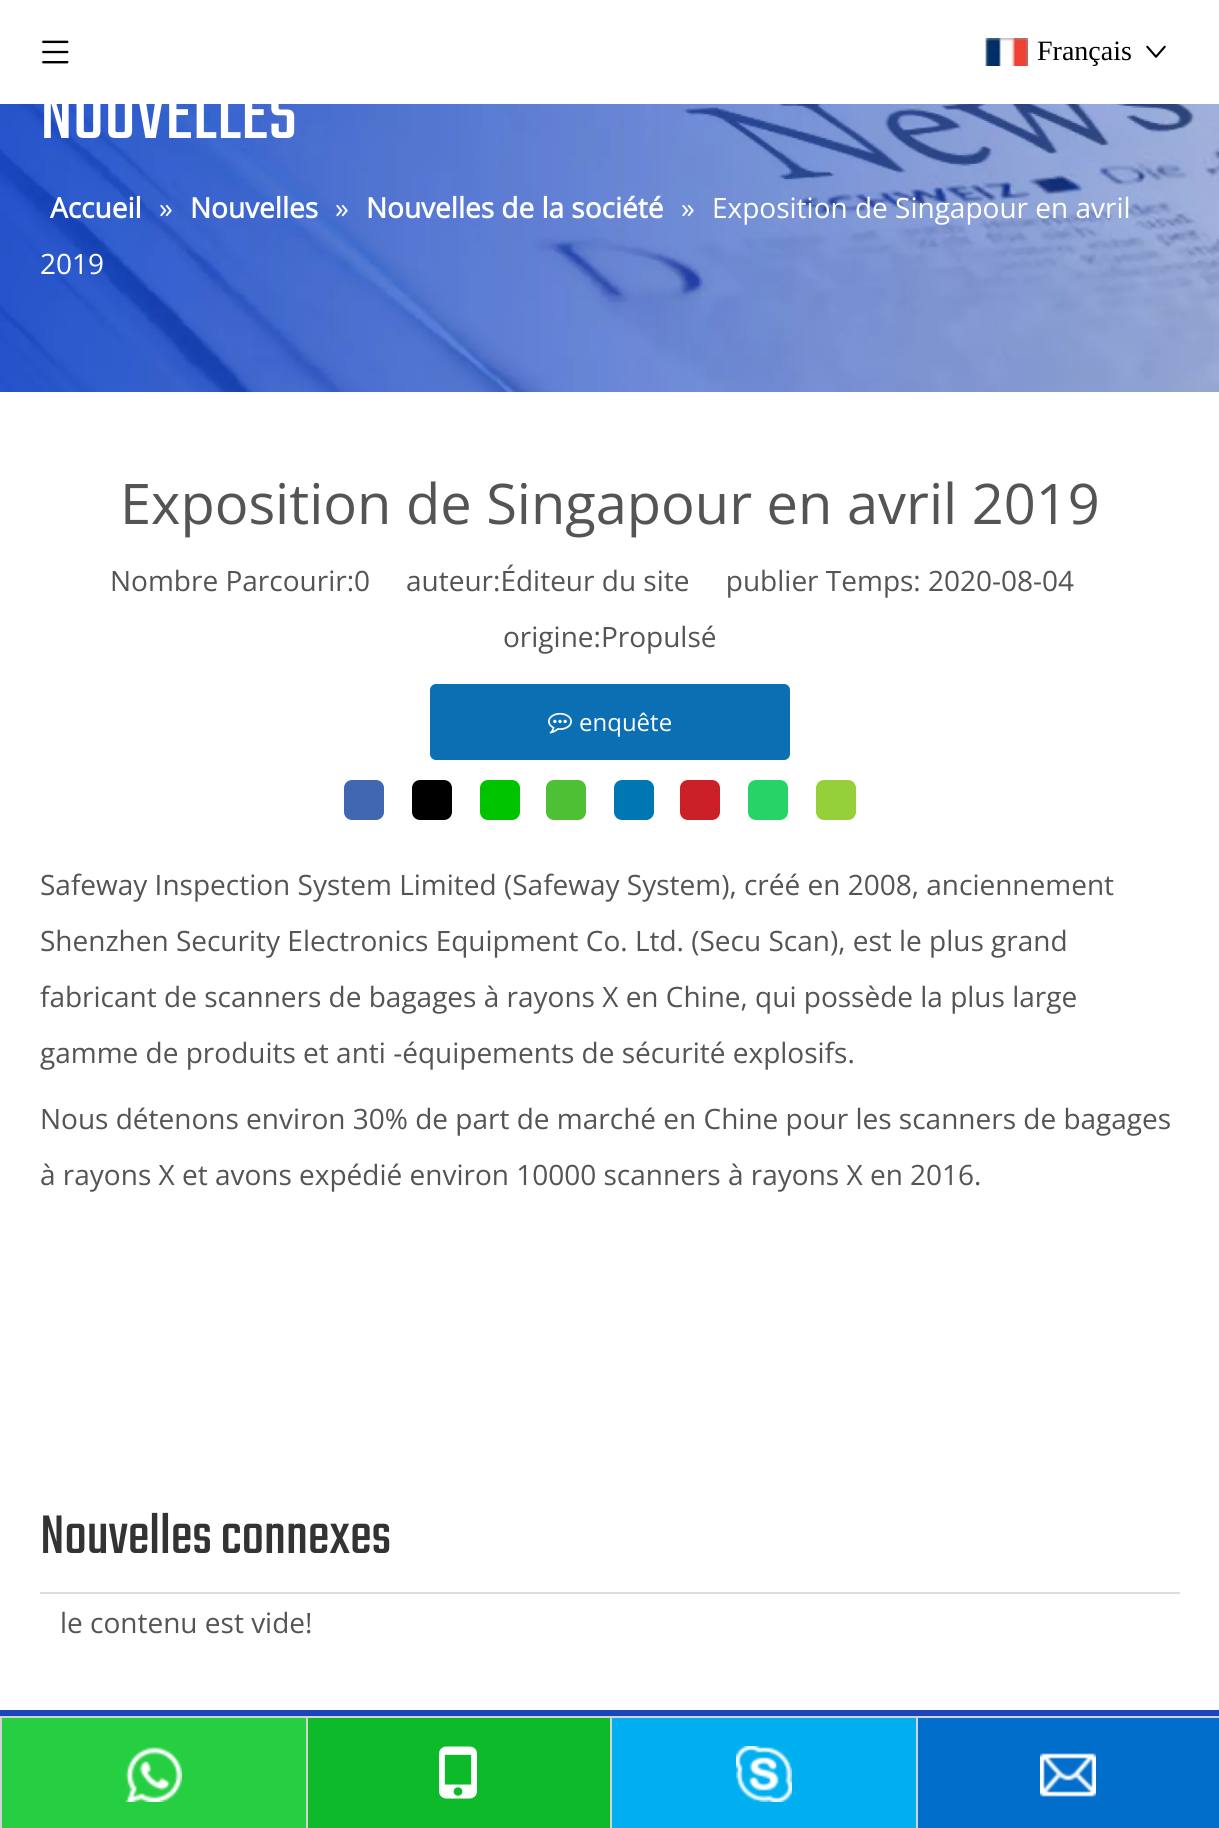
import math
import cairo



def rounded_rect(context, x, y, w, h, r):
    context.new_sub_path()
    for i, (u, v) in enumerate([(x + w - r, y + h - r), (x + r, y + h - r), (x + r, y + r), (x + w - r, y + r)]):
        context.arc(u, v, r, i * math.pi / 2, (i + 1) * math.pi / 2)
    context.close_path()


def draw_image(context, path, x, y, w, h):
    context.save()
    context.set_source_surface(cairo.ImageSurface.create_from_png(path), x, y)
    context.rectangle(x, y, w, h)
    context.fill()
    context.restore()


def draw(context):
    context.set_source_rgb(1, 1, 1)
    context.paint()
    draw_image(context, "images/1.png", 42, 40, 27, 24)
    draw_image(context, "images/2.png", 985, 38, 43, 28)
    draw_image(context, "images/3.png", 1146, 45, 20, 13)
    draw_image(context, "images/4.png", 0, 104, 1219, 288)
    context.set_source_rgb(12 / 255, 111 / 255, 179 / 255)
    rounded_rect(context, 430, 684, 360, 76, 6)
    context.fill()
    draw_image(context, "images/5.png", 548, 712, 24, 22)
    context.set_source_rgb(66 / 255, 103 / 255, 178 / 255)
    rounded_rect(context, 344, 780, 40, 40, 8)
    context.fill()
    context.set_source_rgb(0, 0, 0)
    rounded_rect(context, 412, 780, 40, 40, 8)
    context.fill()
    context.set_source_rgb(0, 195 / 255, 0)
    rounded_rect(context, 480, 780, 40, 40, 8)
    context.fill()
    context.set_source_rgb(78 / 255, 192 / 255, 52 / 255)
    rounded_rect(context, 546, 780, 40, 40, 8)
    context.fill()
    context.set_source_rgb(0, 119 / 255, 181 / 255)
    rounded_rect(context, 614, 780, 40, 40, 8)
    context.fill()
    context.set_source_rgb(203 / 255, 32 / 255, 39 / 255)
    rounded_rect(context, 680, 780, 40, 40, 8)
    context.fill()
    context.set_source_rgb(37 / 255, 211 / 255, 102 / 255)
    rounded_rect(context, 748, 780, 40, 40, 8)
    context.fill()
    context.set_source_rgb(149 / 255, 208 / 255, 58 / 255)
    rounded_rect(context, 816, 780, 40, 40, 8)
    context.fill()
    context.set_source_rgb(221 / 255, 221 / 255, 221 / 255)
    context.rectangle(40, 1592, 1140, 2)
    context.fill()
    context.set_source_rgb(25 / 255, 70 / 255, 186 / 255)
    context.rectangle(0, 1710, 1219, 6)
    context.fill()
    context.set_source_rgb(211 / 255, 211 / 255, 211 / 255)
    context.rectangle(0, 1716, 1219, 2)
    context.fill()
    context.rectangle(0, 1718, 2, 110)
    context.fill()
    context.set_source_rgb(38 / 255, 207 / 255, 65 / 255)
    context.rectangle(2, 1718, 304, 110)
    context.fill()
    draw_image(context, "images/6.png", 125, 1747, 57, 55)
    context.set_source_rgb(211 / 255, 211 / 255, 211 / 255)
    context.rectangle(306, 1718, 2, 110)
    context.fill()
    context.set_source_rgb(13 / 255, 186 / 255, 42 / 255)
    context.rectangle(308, 1718, 302, 110)
    context.fill()
    draw_image(context, "images/7.png", 439, 1746, 38, 53)
    context.set_source_rgb(211 / 255, 211 / 255, 211 / 255)
    context.rectangle(610, 1718, 2, 110)
    context.fill()
    context.set_source_rgb(0, 175 / 255, 240 / 255)
    context.rectangle(612, 1718, 304, 110)
    context.fill()
    draw_image(context, "images/8.png", 736, 1746, 56, 56)
    context.set_source_rgb(211 / 255, 211 / 255, 211 / 255)
    context.rectangle(916, 1718, 2, 110)
    context.fill()
    context.set_source_rgb(1 / 255, 110 / 255, 203 / 255)
    context.rectangle(918, 1718, 301, 110)
    context.fill()
    draw_image(context, "images/9.png", 1040, 1753, 56, 44)
    context.select_font_face("Liberation Serif")
    context.set_font_size(28)
    context.set_source_rgb(0, 0, 0)
    context.move_to(1037, 60)
    context.show_text("Français")
    context.select_font_face("Teko")
    context.set_font_size(80)
    context.set_source_rgb(1, 1, 1)
    context.move_to(40, 138)
    context.show_text("NOUVELLES")
    context.select_font_face("Open Sans", cairo.FontSlant.NORMAL, cairo.FontWeight.BOLD)
    context.set_font_size(28)
    context.move_to(50, 218)
    context.show_text("Accueil")
    context.select_font_face("Open Sans")
    context.move_to(159, 218)
    context.show_text("»")
    context.select_font_face("Open Sans", cairo.FontSlant.NORMAL, cairo.FontWeight.BOLD)
    context.move_to(190, 218)
    context.show_text("Nouvelles")
    context.select_font_face("Open Sans")
    context.move_to(335, 218)
    context.show_text("»")
    context.select_font_face("Open Sans", cairo.FontSlant.NORMAL, cairo.FontWeight.BOLD)
    context.move_to(366, 218)
    context.show_text("Nouvelles de la société")
    context.select_font_face("Open Sans")
    context.move_to(681, 218)
    context.show_text("»")
    context.move_to(712, 218)
    context.show_text("Exposition de Singapour en avril")
    context.move_to(40, 274)
    context.show_text("2019")
    context.set_font_size(56)
    context.set_source_rgb(84 / 255, 84 / 255, 84 / 255)
    context.move_to(120, 524)
    context.show_text("Exposition de Singapour en avril 2019")
    context.set_font_size(28)
    context.move_to(110, 591)
    context.show_text("Nombre Parcourir:0")
    context.move_to(406, 591)
    context.show_text("auteur:Éditeur du site     publier Temps: 2020-08-04")
    context.move_to(503, 647)
    context.show_text("origine:Propulsé")
    context.set_font_size(24)
    context.set_source_rgb(1, 1, 1)
    context.move_to(579, 731)
    context.show_text("enquête")
    context.set_font_size(28)
    context.set_source_rgb(84 / 255, 84 / 255, 84 / 255)
    context.move_to(40, 895)
    context.show_text("Safeway Inspection System Limited (Safeway System), créé en 2008, anciennement")
    context.move_to(40, 951)
    context.show_text("Shenzhen Security Electronics Equipment Co. Ltd. (Secu Scan), est le plus grand")
    context.move_to(40, 1007)
    context.show_text("fabricant de scanners de bagages à rayons X en Chine, qui possède la plus large")
    context.move_to(40, 1063)
    context.show_text("gamme de produits et anti -équipements de sécurité explosifs.")
    context.move_to(40, 1129)
    context.show_text("Nous détenons environ 30% de part de marché en Chine pour les scanners de bagages")
    context.move_to(40, 1185)
    context.show_text("à rayons X et avons expédié environ 10000 scanners à rayons X en 2016.")
    context.select_font_face("Teko")
    context.set_font_size(60)
    context.set_source_rgb(51 / 255, 51 / 255, 51 / 255)
    context.move_to(40, 1553)
    context.show_text("Nouvelles connexes")
    context.select_font_face("Open Sans")
    context.set_font_size(28)
    context.set_source_rgb(84 / 255, 84 / 255, 84 / 255)
    context.move_to(60, 1633)
    context.show_text("le contenu est vide!")


surface = cairo.ImageSurface(cairo.Format.RGB24, 1219, 1828)
context = cairo.Context(surface)
options = cairo.FontOptions()
options.set_hint_metrics(cairo.HintMetrics.OFF)
options.set_hint_style(cairo.HintStyle.NONE)
context.set_font_options(options)
context.set_miter_limit(4)
draw(context)
surface.write_to_png("out.png")
